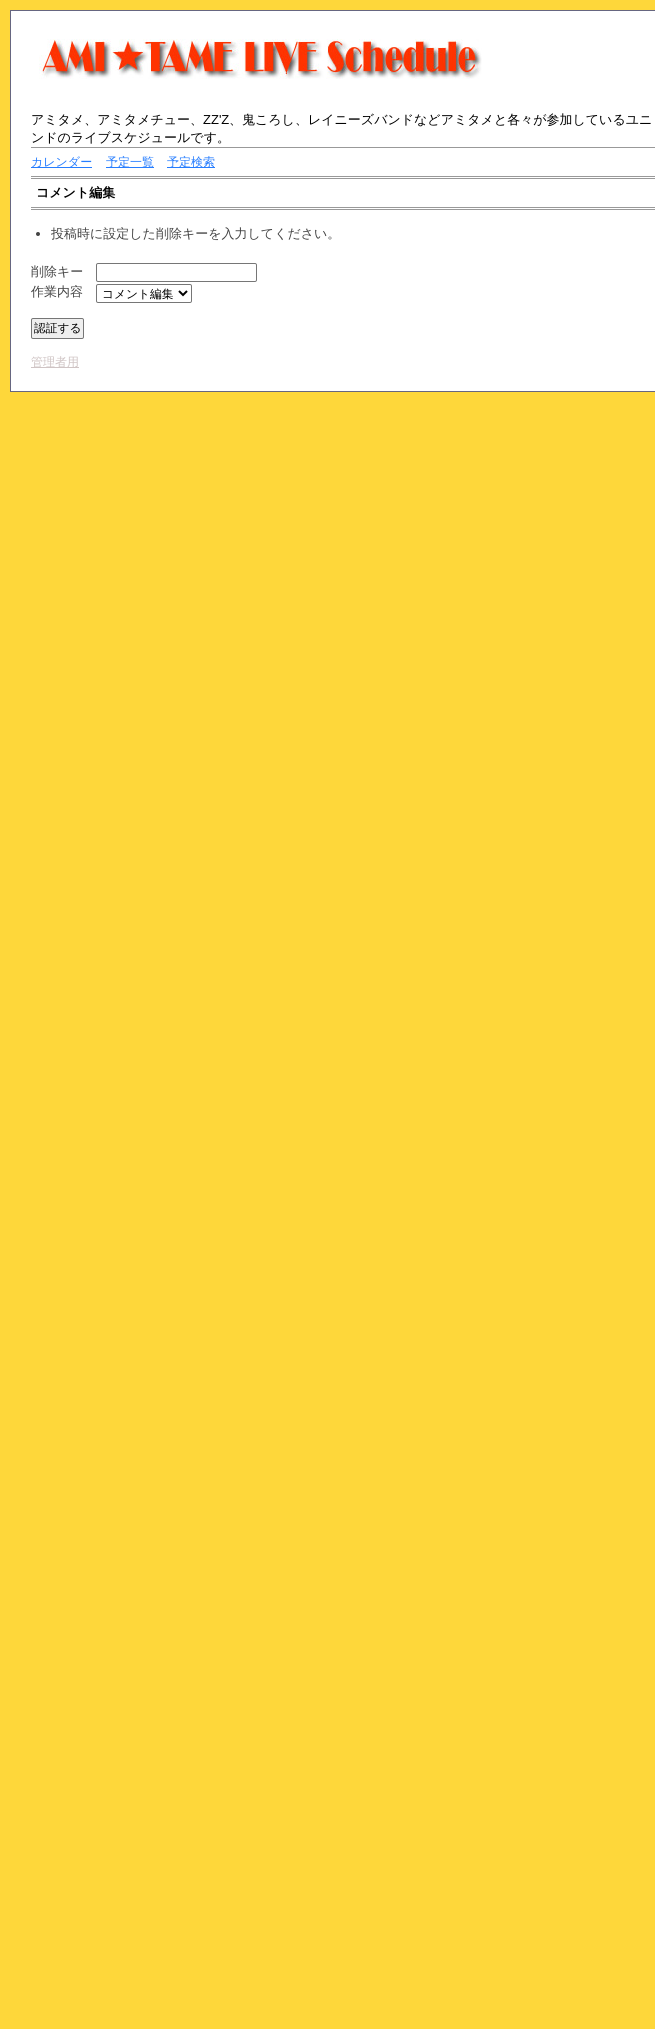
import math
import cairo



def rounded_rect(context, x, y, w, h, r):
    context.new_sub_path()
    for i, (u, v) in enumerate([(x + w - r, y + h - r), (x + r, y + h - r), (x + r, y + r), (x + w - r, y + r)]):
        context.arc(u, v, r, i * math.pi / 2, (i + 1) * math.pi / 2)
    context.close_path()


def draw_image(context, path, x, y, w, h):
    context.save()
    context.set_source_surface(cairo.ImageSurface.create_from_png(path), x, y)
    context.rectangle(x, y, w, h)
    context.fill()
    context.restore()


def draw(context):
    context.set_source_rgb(254 / 255, 215 / 255, 58 / 255)
    context.paint()
    context.set_source_rgb(1, 1, 1)
    context.rectangle(10.5, 10.5, 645, 381)
    context.fill_preserve()
    context.set_source_rgb(102 / 255, 102 / 255, 128 / 255)
    context.set_line_width(1)
    context.stroke()
    draw_image(context, "images/1.png", 39, 39, 443, 40)
    context.set_source_rgb(153 / 255, 153 / 255, 153 / 255)
    context.rectangle(31, 147, 624, 1)
    context.fill()
    context.set_source_rgb(38 / 255, 125 / 255, 1)
    context.rectangle(31, 167, 61, 1)
    context.fill()
    context.rectangle(106, 167, 48, 1)
    context.fill()
    context.rectangle(167, 167, 48, 1)
    context.fill()
    context.set_source_rgb(153 / 255, 153 / 255, 153 / 255)
    context.rectangle(31, 176, 624, 1)
    context.fill()
    context.rectangle(31, 178, 624, 1)
    context.fill()
    context.rectangle(31, 207, 624, 1)
    context.fill()
    context.rectangle(31, 209, 624, 1)
    context.fill()
    context.set_source_rgb(68 / 255, 68 / 255, 68 / 255)
    context.arc(38, 234, 2, 0, 2 * math.pi)
    context.fill()
    rounded_rect(context, 96.5, 263.5, 160, 18, 1.5)
    context.set_source_rgb(118 / 255, 118 / 255, 118 / 255)
    context.stroke()
    rounded_rect(context, 96.5, 284.5, 95, 18, 1.5)
    context.stroke()
    context.new_path()
    context.move_to(179, 291)
    context.line_to(183, 295)
    context.line_to(187, 291)
    context.set_source_rgb(0, 0, 0)
    context.set_line_width(2)
    context.stroke()
    context.set_source_rgb(239 / 255, 239 / 255, 239 / 255)
    rounded_rect(context, 31.5, 318.5, 52, 20, 1.5)
    context.fill_preserve()
    context.set_source_rgb(118 / 255, 118 / 255, 118 / 255)
    context.set_line_width(1)
    context.stroke()
    context.set_source_rgb(207 / 255, 196 / 255, 196 / 255)
    context.rectangle(31, 367, 48, 1)
    context.fill()
    context.select_font_face("WenQuanYi Zen Hei Medium")
    context.set_font_size(13)
    context.set_source_rgb(0, 0, 0)
    context.move_to(31, 124)
    context.show_text("アミタメ、アミタメチュー、")
    context.select_font_face("Liberation Sans")
    context.move_to(203, 124)
    context.show_text("ZZ'Z")
    context.select_font_face("WenQuanYi Zen Hei Medium")
    context.move_to(229, 124)
    context.show_text("、鬼ころし、レイニーズバンドなどアミタメと各々が参加しているユニ")
    context.move_to(31, 142)
    context.show_text("ンドのライブスケジュールです。")
    context.set_font_size(12)
    context.set_source_rgb(38 / 255, 125 / 255, 1)
    context.move_to(31, 166)
    context.show_text("カレンダー")
    context.move_to(106, 166)
    context.show_text("予定一覧")
    context.move_to(167, 166)
    context.show_text("予定検索")
    context.select_font_face("WenQuanYi Zen Hei", cairo.FontSlant.NORMAL, cairo.FontWeight.BOLD)
    context.set_font_size(13)
    context.set_source_rgb(0, 0, 0)
    context.move_to(36, 197)
    context.show_text("コメント編集")
    context.select_font_face("WenQuanYi Zen Hei Medium")
    context.set_source_rgb(68 / 255, 68 / 255, 68 / 255)
    context.move_to(51, 238)
    context.show_text("投稿時に設定した削除キーを入力してください。")
    context.move_to(31, 276)
    context.show_text("削除キー")
    context.move_to(31, 296)
    context.show_text("作業内容")
    context.set_font_size(11.75)
    context.set_source_rgb(0, 0, 0)
    context.move_to(102, 298)
    context.show_text("コメント編集")
    context.move_to(34, 332)
    context.show_text("認証する")
    context.set_font_size(12)
    context.set_source_rgb(207 / 255, 196 / 255, 196 / 255)
    context.move_to(31, 366)
    context.show_text("管理者用")


surface = cairo.ImageSurface(cairo.Format.RGB24, 655, 2029)
context = cairo.Context(surface)
options = cairo.FontOptions()
options.set_hint_metrics(cairo.HintMetrics.OFF)
options.set_hint_style(cairo.HintStyle.NONE)
context.set_font_options(options)
context.set_miter_limit(4)
draw(context)
surface.write_to_png("out.png")
